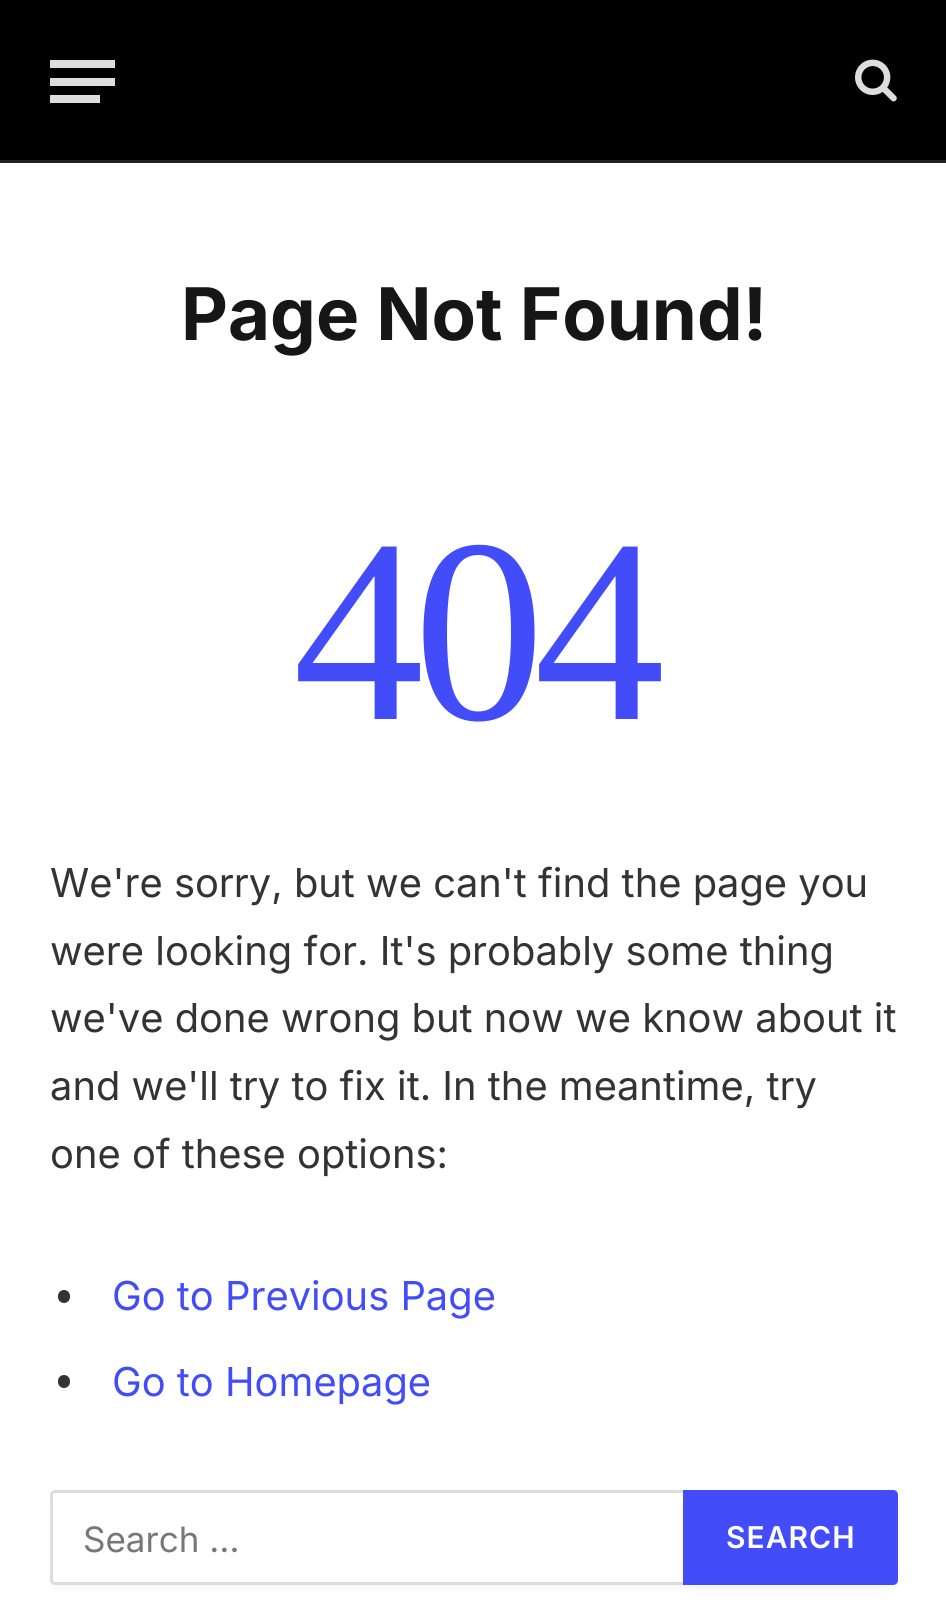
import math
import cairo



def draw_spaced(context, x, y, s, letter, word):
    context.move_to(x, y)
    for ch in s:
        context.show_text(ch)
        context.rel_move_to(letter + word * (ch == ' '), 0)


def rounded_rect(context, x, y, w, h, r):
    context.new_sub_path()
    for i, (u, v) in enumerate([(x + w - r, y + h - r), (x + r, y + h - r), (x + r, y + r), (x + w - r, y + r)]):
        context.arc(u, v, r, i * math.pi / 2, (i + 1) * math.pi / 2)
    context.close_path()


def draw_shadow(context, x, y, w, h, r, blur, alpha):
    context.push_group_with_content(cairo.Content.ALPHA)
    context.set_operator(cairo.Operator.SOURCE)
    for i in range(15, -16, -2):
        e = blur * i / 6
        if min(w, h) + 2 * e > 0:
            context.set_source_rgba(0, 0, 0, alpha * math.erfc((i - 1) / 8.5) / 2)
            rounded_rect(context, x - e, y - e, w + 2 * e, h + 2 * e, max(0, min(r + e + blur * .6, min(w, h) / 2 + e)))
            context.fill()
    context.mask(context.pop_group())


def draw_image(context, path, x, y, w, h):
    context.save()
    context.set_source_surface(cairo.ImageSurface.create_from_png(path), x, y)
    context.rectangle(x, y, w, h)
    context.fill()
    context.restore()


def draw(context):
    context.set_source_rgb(1, 1, 1)
    context.paint()
    context.set_source_rgb(0, 0, 0)
    context.rectangle(0, 0, 946, 160)
    context.fill()
    context.set_source_rgb(34 / 255, 34 / 255, 34 / 255)
    context.rectangle(0, 160, 946, 3)
    context.fill()
    context.set_source_rgb(221 / 255, 221 / 255, 221 / 255)
    context.rectangle(50, 95, 50, 8)
    context.fill()
    context.rectangle(50, 60, 65, 8)
    context.fill()
    context.rectangle(50, 78, 65, 8)
    context.fill()
    draw_image(context, "images/1.png", 855, 59, 42, 43)
    context.set_source_rgb(51 / 255, 51 / 255, 51 / 255)
    rounded_rect(context, 58, 1290, 12, 13, 6)
    context.fill()
    rounded_rect(context, 58, 1375, 12, 13, 6)
    context.fill()
    context.set_source_rgb(0, 0, 0)
    draw_shadow(context, 60, 1505, 618, 75, 0, 9, 0.1)
    context.set_source_rgb(1, 1, 1)
    rounded_rect(context, 51.5, 1491.5, 635, 92, 3.5)
    context.fill_preserve()
    context.set_source_rgb(221 / 255, 221 / 255, 221 / 255)
    context.set_line_width(3)
    context.stroke()
    context.set_source_rgb(0, 0, 0)
    draw_shadow(context, 693, 1505, 195, 75, 0, 9, 0.16)
    context.set_source_rgb(66 / 255, 76 / 255, 249 / 255)
    context.new_path()
    context.move_to(683, 1490)
    context.line_to(893, 1490)
    context.curve_to(896, 1490, 898, 1492, 898, 1495)
    context.line_to(898, 1580)
    context.curve_to(898, 1583, 896, 1585, 893, 1585)
    context.line_to(683, 1585)
    context.close_path()
    context.fill()
    context.select_font_face("Inter", cairo.FontSlant.NORMAL, cairo.FontWeight.BOLD)
    context.set_font_size(72.5)
    context.set_source_rgb(22 / 255, 22 / 255, 22 / 255)
    context.move_to(181, 340)
    context.show_text("Page Not Found!")
    context.select_font_face("Liberation Serif")
    context.set_font_size(262)
    context.set_source_rgb(66 / 255, 76 / 255, 249 / 255)
    draw_spaced(context, 293, 719, "404", -10.5, 0)
    context.select_font_face("Inter")
    context.set_font_size(39.85)
    context.set_source_rgb(51 / 255, 51 / 255, 51 / 255)
    context.move_to(50, 897)
    context.show_text("We're sorry, but we can't find the page you")
    context.move_to(50, 965)
    context.show_text("were looking for. It's probably some thing")
    context.move_to(50, 1032)
    context.show_text("we've done wrong but now we know about it")
    context.move_to(50, 1100)
    context.show_text("and we'll try to fix it. In the meantime, try")
    context.move_to(50, 1168)
    context.show_text("one of these options:")
    context.set_source_rgb(66 / 255, 76 / 255, 249 / 255)
    context.move_to(112, 1310)
    context.show_text("Go to Previous Page")
    context.move_to(112, 1396)
    context.show_text("Go to Homepage")
    context.set_font_size(35)
    context.set_source_rgb(119 / 255, 119 / 255, 119 / 255)
    context.move_to(83, 1552)
    context.show_text("Search …")
    context.select_font_face("Inter SemiBold")
    context.set_font_size(30)
    context.set_source_rgb(1, 1, 1)
    draw_spaced(context, 726, 1548, "SEARCH", 1, 0)


surface = cairo.ImageSurface(cairo.Format.RGB24, 946, 1620)
context = cairo.Context(surface)
options = cairo.FontOptions()
options.set_hint_metrics(cairo.HintMetrics.OFF)
options.set_hint_style(cairo.HintStyle.NONE)
context.set_font_options(options)
context.set_miter_limit(4)
draw(context)
surface.write_to_png("out.png")
